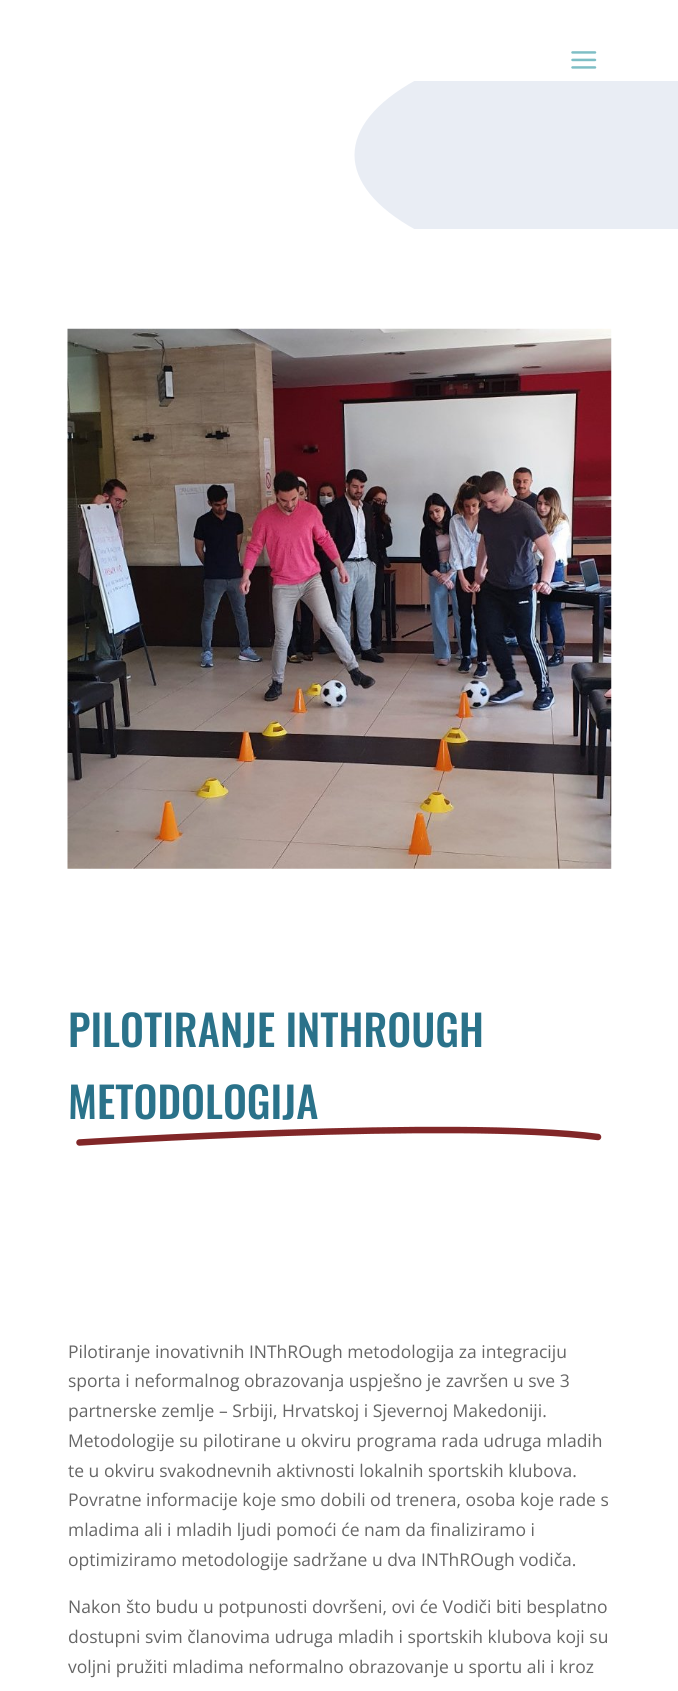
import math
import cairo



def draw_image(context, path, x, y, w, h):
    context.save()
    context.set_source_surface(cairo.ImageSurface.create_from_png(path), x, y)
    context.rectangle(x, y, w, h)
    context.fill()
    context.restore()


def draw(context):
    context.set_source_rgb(1, 1, 1)
    context.paint()
    draw_image(context, "images/1.png", 571, 51, 26, 18)
    context.set_source_rgb(233 / 255, 237 / 255, 244 / 255)
    context.rectangle(354, 81, 324, 148)
    context.fill()
    context.save()
    context.rectangle(0, 81, 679, 148)
    context.clip()
    context.set_source_rgb(1, 1, 1)
    context.new_path()
    context.move_to(416, 80)
    context.line_to(-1, 80)
    context.line_to(-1, 230)
    context.line_to(416, 230)
    context.curve_to(334, 185, 334, 125, 416, 80)
    context.close_path()
    context.fill()
    context.restore()
    draw_image(context, "images/2.png", 67, 328, 545, 541)
    context.new_path()
    context.move_to(79.5, 1142.5)
    context.curve_to(79.5, 1142.5, 457, 1118.5, 598, 1137)
    context.set_source_rgb(129 / 255, 39 / 255, 40 / 255)
    context.set_line_width(6.5)
    context.set_line_cap(cairo.LineCap.ROUND)
    context.set_line_join(cairo.LineJoin.ROUND)
    context.stroke()
    context.select_font_face("Oswald Medium")
    context.set_font_size(42.5)
    context.set_source_rgb(42 / 255, 114 / 255, 138 / 255)
    context.move_to(68, 1047)
    context.show_text("PILOTIRANJE INTHROUGH")
    context.move_to(68, 1119)
    context.show_text("METODOLOGIJA")
    context.select_font_face("Open Sans")
    context.set_font_size(17.5)
    context.set_source_rgb(102 / 255, 102 / 255, 102 / 255)
    context.move_to(68, 1358)
    context.show_text("Pilotiranje inovativnih INThROugh metodologija za integraciju")
    context.move_to(68, 1387)
    context.show_text("sporta i neformalnog obrazovanja uspješno je završen u sve 3")
    context.move_to(68, 1417)
    context.show_text("partnerske zemlje – Srbiji, Hrvatskoj i Sjevernoj Makedoniji.")
    context.move_to(68, 1447)
    context.show_text("Metodologije su pilotirane u okviru programa rada udruga mladih")
    context.move_to(68, 1477)
    context.show_text("te u okviru svakodnevnih aktivnosti lokalnih sportskih klubova.")
    context.move_to(68, 1506)
    context.show_text("Povratne informacije koje smo dobili od trenera, osoba koje rade s")
    context.move_to(68, 1536)
    context.show_text("mladima ali i mladih ljudi pomoći će nam da finaliziramo i")
    context.move_to(68, 1566)
    context.show_text("optimiziramo metodologije sadržane u dva INThROugh vodiča.")
    context.move_to(68, 1613)
    context.show_text("Nakon što budu u potpunosti dovršeni, ovi će Vodiči biti besplatno")
    context.move_to(68, 1643)
    context.show_text("dostupni svim članovima udruga mladih i sportskih klubova koji su")
    context.move_to(68, 1673)
    context.show_text("voljni pružiti mladima neformalno obrazovanje u sportu ali i kroz")


surface = cairo.ImageSurface(cairo.Format.RGB24, 678, 1691)
context = cairo.Context(surface)
options = cairo.FontOptions()
options.set_hint_metrics(cairo.HintMetrics.OFF)
options.set_hint_style(cairo.HintStyle.NONE)
context.set_font_options(options)
context.set_miter_limit(4)
draw(context)
surface.write_to_png("out.png")
